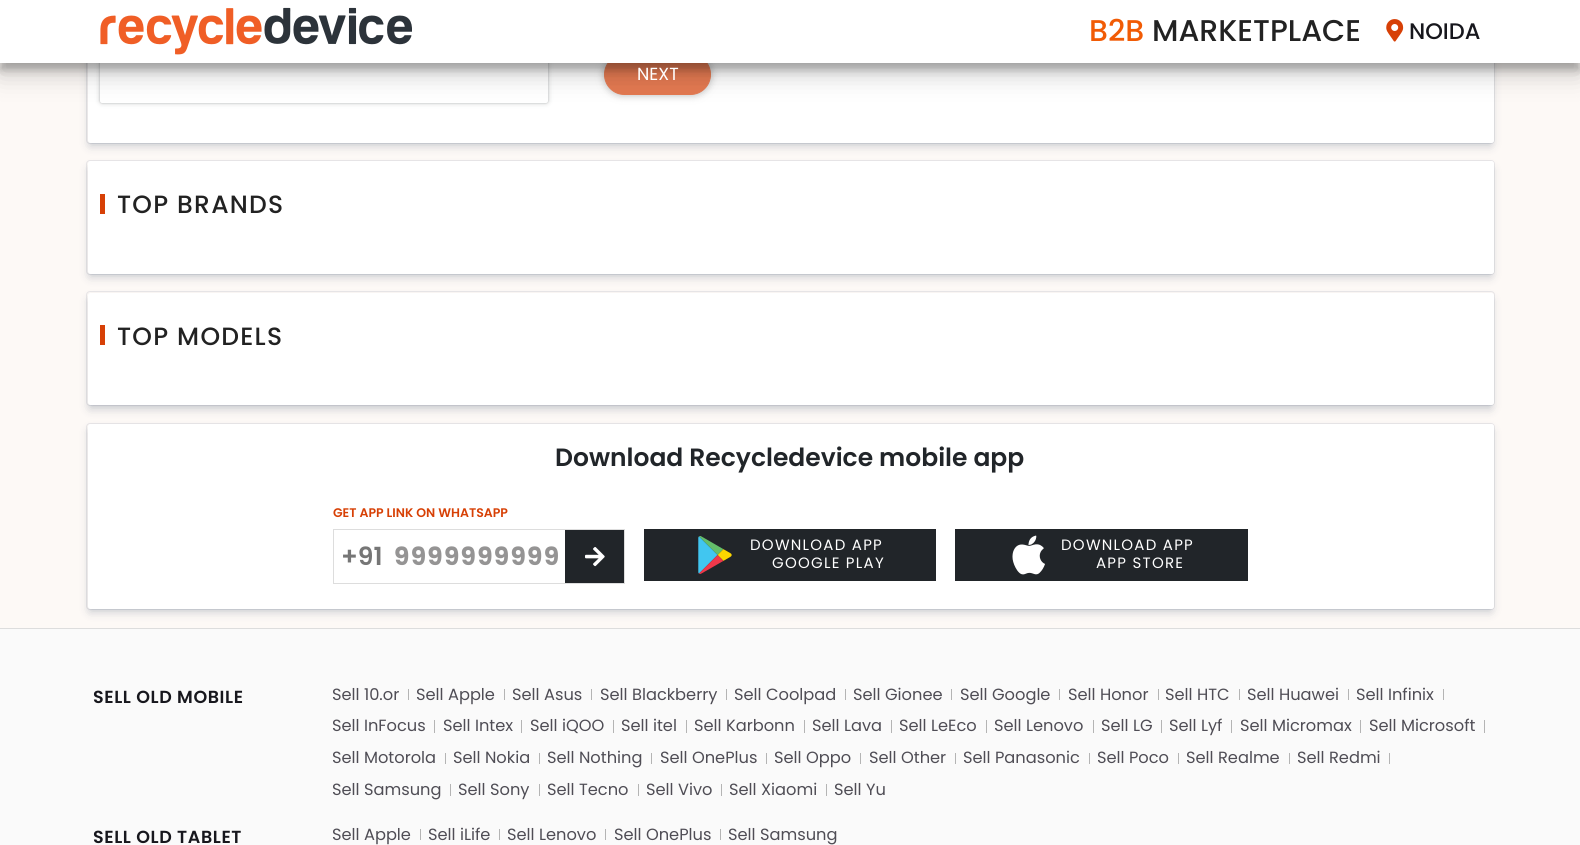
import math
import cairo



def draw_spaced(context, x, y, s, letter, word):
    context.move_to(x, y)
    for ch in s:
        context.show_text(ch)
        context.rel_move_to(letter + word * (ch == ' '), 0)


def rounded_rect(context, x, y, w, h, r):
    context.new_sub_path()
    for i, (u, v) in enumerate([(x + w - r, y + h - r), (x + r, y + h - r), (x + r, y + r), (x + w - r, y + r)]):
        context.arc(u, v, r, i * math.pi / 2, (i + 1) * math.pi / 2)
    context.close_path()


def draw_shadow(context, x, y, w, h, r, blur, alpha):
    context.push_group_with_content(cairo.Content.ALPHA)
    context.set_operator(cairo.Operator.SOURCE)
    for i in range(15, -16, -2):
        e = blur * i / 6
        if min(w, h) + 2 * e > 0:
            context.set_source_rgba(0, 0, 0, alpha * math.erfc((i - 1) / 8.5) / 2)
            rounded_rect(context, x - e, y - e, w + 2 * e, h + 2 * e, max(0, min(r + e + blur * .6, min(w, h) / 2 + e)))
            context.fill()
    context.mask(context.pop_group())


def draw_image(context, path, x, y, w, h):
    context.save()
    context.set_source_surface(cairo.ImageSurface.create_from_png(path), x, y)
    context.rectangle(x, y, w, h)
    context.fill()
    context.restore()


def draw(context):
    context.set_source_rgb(253 / 255, 249 / 255, 246 / 255)
    context.paint()
    rounded_rect(context, 86.5, -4.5, 1408, 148, 3.5)
    context.set_source_rgb(233 / 255, 231 / 255, 232 / 255)
    context.set_line_width(1)
    context.stroke()
    context.set_source_rgb(9 / 255, 30 / 255, 66 / 255)
    draw_shadow(context, 90, -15, 1401, 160, 0, 5, 0.25)
    context.set_source_rgb(1, 1, 1)
    rounded_rect(context, 88, -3, 1406, 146, 2.5)
    context.fill()
    context.set_source_rgb(60 / 255, 64 / 255, 67 / 255)
    draw_shadow(context, 99, -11, 450, 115, 3, 2.5, 0.15)
    draw_shadow(context, 100, -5, 448, 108, 2, 1, 0.3)
    context.set_source_rgb(1, 1, 1)
    rounded_rect(context, 100, -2, 448, 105, 2)
    context.fill()
    context.set_source_rgb(105 / 255, 105 / 255, 105 / 255)
    draw_shadow(context, 604, 54, 107, 41, 20.5, 4, 0.45)
    context.set_source_rgb(227 / 255, 121 / 255, 81 / 255)
    rounded_rect(context, 604.5, 54.5, 106, 40, 20)
    context.fill_preserve()
    context.stroke()
    context.set_source_rgb(0, 0, 0)
    draw_shadow(context, 0, 8, 1580, 62, 0, 4, 0.23)
    draw_shadow(context, 0, 13, 1580, 62, 0, 12.5, 0.19)
    context.set_source_rgb(1, 1, 1)
    context.rectangle(0, 0, 1580, 63)
    context.fill()
    draw_image(context, "images/1.png", 100, 7, 312, 48)
    draw_image(context, "images/2.png", 1386, 19, 18, 23)
    rounded_rect(context, 86.5, 160.5, 1408, 114, 3.5)
    context.set_source_rgb(233 / 255, 231 / 255, 232 / 255)
    context.stroke()
    context.set_source_rgb(9 / 255, 30 / 255, 66 / 255)
    draw_shadow(context, 90, 169, 1401, 107, 0, 5, 0.25)
    context.set_source_rgb(1, 1, 1)
    rounded_rect(context, 88, 161, 1406, 113, 2.5)
    context.fill()
    context.set_source_rgb(215 / 255, 64 / 255, 6 / 255)
    context.rectangle(100, 194, 5, 20)
    context.fill()
    rounded_rect(context, 86.5, 291.5, 1408, 114, 3.5)
    context.set_source_rgb(233 / 255, 231 / 255, 232 / 255)
    context.stroke()
    context.set_source_rgb(9 / 255, 30 / 255, 66 / 255)
    draw_shadow(context, 90, 300, 1401, 108, 0, 5, 0.25)
    context.set_source_rgb(1, 1, 1)
    rounded_rect(context, 88, 293, 1406, 112, 2.5)
    context.fill()
    context.set_source_rgb(215 / 255, 64 / 255, 6 / 255)
    context.rectangle(100, 325, 5, 20)
    context.fill()
    rounded_rect(context, 86.5, 423.5, 1408, 186, 3.5)
    context.set_source_rgb(233 / 255, 231 / 255, 232 / 255)
    context.stroke()
    context.set_source_rgb(9 / 255, 30 / 255, 66 / 255)
    draw_shadow(context, 90, 431, 1401, 180, 0, 5, 0.25)
    context.set_source_rgb(1, 1, 1)
    rounded_rect(context, 88, 424, 1406, 185, 2.5)
    context.fill()
    context.rectangle(333.5, 529.5, 291, 54)
    context.set_source_rgb(221 / 255, 221 / 255, 221 / 255)
    context.stroke()
    context.set_source_rgb(33 / 255, 37 / 255, 41 / 255)
    context.rectangle(565, 530, 59, 53)
    context.fill()
    draw_image(context, "images/3.png", 585, 547, 20, 20)
    context.rectangle(644, 529, 292, 52)
    context.fill()
    draw_image(context, "images/4.png", 698, 536, 34, 38)
    context.rectangle(955, 529, 293, 52)
    context.fill()
    draw_image(context, "images/5.png", 1012, 535, 33, 40)
    context.set_source_rgb(250 / 255, 250 / 255, 250 / 255)
    context.rectangle(0, 629, 1580, 216)
    context.fill()
    context.set_source_rgb(221 / 255, 221 / 255, 221 / 255)
    context.rectangle(0, 628, 1580, 1)
    context.fill()
    context.set_source_rgb(180 / 255, 180 / 255, 180 / 255)
    context.rectangle(408, 689, 1, 11)
    context.fill()
    context.rectangle(504, 689, 1, 11)
    context.fill()
    context.rectangle(591, 689, 1, 11)
    context.fill()
    context.rectangle(726, 689, 1, 11)
    context.fill()
    context.rectangle(845, 689, 1, 11)
    context.fill()
    context.rectangle(951, 689, 1, 11)
    context.fill()
    context.rectangle(1059, 689, 1, 11)
    context.fill()
    context.rectangle(1158, 689, 1, 11)
    context.fill()
    context.rectangle(1239, 689, 1, 11)
    context.fill()
    context.rectangle(1348, 689, 1, 11)
    context.fill()
    context.rectangle(1443, 689, 1, 11)
    context.fill()
    context.rectangle(434, 720, 1, 13)
    context.fill()
    context.rectangle(521, 720, 1, 13)
    context.fill()
    context.rectangle(613, 720, 1, 13)
    context.fill()
    context.rectangle(686, 720, 1, 13)
    context.fill()
    context.rectangle(804, 720, 1, 13)
    context.fill()
    context.rectangle(891, 720, 1, 13)
    context.fill()
    context.rectangle(986, 720, 1, 13)
    context.fill()
    context.rectangle(1093, 720, 1, 13)
    context.fill()
    context.rectangle(1161, 720, 1, 13)
    context.fill()
    context.rectangle(1231, 720, 1, 13)
    context.fill()
    context.rectangle(1360, 720, 1, 13)
    context.fill()
    context.rectangle(1484, 720, 1, 13)
    context.fill()
    context.rectangle(445, 753, 1, 11)
    context.fill()
    context.rectangle(539, 753, 1, 11)
    context.fill()
    context.rectangle(651, 753, 1, 11)
    context.fill()
    context.rectangle(766, 753, 1, 11)
    context.fill()
    context.rectangle(860, 753, 1, 11)
    context.fill()
    context.rectangle(955, 753, 1, 11)
    context.fill()
    context.rectangle(1089, 753, 1, 11)
    context.fill()
    context.rectangle(1178, 753, 1, 11)
    context.fill()
    context.rectangle(1289, 753, 1, 11)
    context.fill()
    context.rectangle(1389, 753, 1, 11)
    context.fill()
    context.rectangle(450, 784, 1, 12)
    context.fill()
    context.rectangle(539, 784, 1, 12)
    context.fill()
    context.rectangle(638, 784, 1, 12)
    context.fill()
    context.rectangle(721, 784, 1, 12)
    context.fill()
    context.rectangle(826, 784, 1, 12)
    context.fill()
    context.rectangle(420, 829, 1, 11)
    context.fill()
    context.rectangle(499, 829, 1, 11)
    context.fill()
    context.rectangle(605, 829, 1, 11)
    context.fill()
    context.rectangle(720, 829, 1, 11)
    context.fill()
    context.select_font_face("Poppins Medium")
    context.set_font_size(30)
    context.set_source_rgb(241 / 255, 91 / 255, 5 / 255)
    context.move_to(1089, 41)
    context.show_text("B2B")
    context.set_source_rgb(34 / 255, 34 / 255, 34 / 255)
    context.move_to(1152, 41)
    context.show_text("MARKETPLACE")
    context.set_font_size(22.5)
    context.set_source_rgb(23 / 255, 23 / 255, 29 / 255)
    context.move_to(1409, 39)
    context.show_text("NOIDA")
    context.select_font_face("Poppins")
    context.set_font_size(17.5)
    context.set_source_rgb(1, 1, 1)
    context.move_to(637, 80)
    context.show_text("NEXT")
    context.select_font_face("Poppins Medium")
    context.set_font_size(25)
    context.set_source_rgb(34 / 255, 34 / 255, 34 / 255)
    draw_spaced(context, 117, 213, "TOP BRANDS", 1.25, 0)
    draw_spaced(context, 117, 345, "TOP MODELS", 1.25, 0)
    context.select_font_face("Poppins SemiBold")
    context.set_source_rgb(33 / 255, 37 / 255, 41 / 255)
    context.move_to(555, 466)
    context.show_text("Download Recycledevice mobile app")
    context.set_font_size(12.5)
    context.set_source_rgb(215 / 255, 64 / 255, 5 / 255)
    context.move_to(333, 517)
    context.show_text("GET APP LINK ON WHATSAPP")
    context.set_font_size(25)
    context.set_source_rgb(118 / 255, 118 / 255, 118 / 255)
    context.move_to(341, 565)
    context.show_text("+91")
    context.select_font_face("Poppins", cairo.FontSlant.NORMAL, cairo.FontWeight.BOLD)
    context.set_source_rgb(149 / 255, 148 / 255, 148 / 255)
    draw_spaced(context, 394, 565, "9999999999", 1.25, 0)
    context.select_font_face("Poppins")
    context.set_font_size(15)
    context.set_source_rgb(1, 1, 1)
    draw_spaced(context, 750, 550, "DOWNLOAD APP", 1.25, 0)
    draw_spaced(context, 772, 568, "GOOGLE PLAY", 1.25, 0)
    draw_spaced(context, 1061, 550, "DOWNLOAD APP", 1.25, 0)
    draw_spaced(context, 1096, 568, "APP STORE", 1.25, 0)
    context.select_font_face("Poppins SemiBold")
    context.set_font_size(17.5)
    context.set_source_rgb(23 / 255, 23 / 255, 29 / 255)
    draw_spaced(context, 93, 703, "SELL OLD MOBILE", 0.6, 0)
    context.select_font_face("Poppins")
    context.set_font_size(16.25)
    context.set_source_rgb(79 / 255, 77 / 255, 85 / 255)
    context.move_to(332, 700)
    context.show_text("Sell 10.or")
    context.move_to(416, 700)
    context.show_text("Sell Apple")
    context.move_to(512, 700)
    context.show_text("Sell Asus")
    context.move_to(600, 700)
    context.show_text("Sell Blackberry")
    context.move_to(734, 700)
    context.show_text("Sell Coolpad")
    context.move_to(853, 700)
    context.show_text("Sell Gionee")
    context.move_to(960, 700)
    context.show_text("Sell Google")
    context.move_to(1068, 700)
    context.show_text("Sell Honor")
    context.move_to(1165, 700)
    context.show_text("Sell HTC")
    context.move_to(1247, 700)
    context.show_text("Sell Huawei")
    context.move_to(1356, 700)
    context.show_text("Sell Infinix")
    context.move_to(332, 731)
    context.show_text("Sell InFocus")
    context.move_to(443, 731)
    context.show_text("Sell Intex")
    context.move_to(530, 731)
    context.show_text("Sell iQOO")
    context.move_to(621, 731)
    context.show_text("Sell itel")
    context.move_to(694, 731)
    context.show_text("Sell Karbonn")
    context.move_to(812, 731)
    context.show_text("Sell Lava")
    context.move_to(899, 731)
    context.show_text("Sell LeEco")
    context.move_to(994, 731)
    context.show_text("Sell Lenovo")
    context.move_to(1101, 731)
    context.show_text("Sell LG")
    context.move_to(1169, 731)
    context.show_text("Sell Lyf")
    context.move_to(1240, 731)
    context.show_text("Sell Micromax")
    context.move_to(1369, 731)
    context.show_text("Sell Microsoft")
    context.move_to(332, 763)
    context.show_text("Sell Motorola")
    context.move_to(453, 763)
    context.show_text("Sell Nokia")
    context.move_to(547, 763)
    context.show_text("Sell Nothing")
    context.move_to(660, 763)
    context.show_text("Sell OnePlus")
    context.move_to(774, 763)
    context.show_text("Sell Oppo")
    context.move_to(869, 763)
    context.show_text("Sell Other")
    context.move_to(963, 763)
    context.show_text("Sell Panasonic")
    context.move_to(1097, 763)
    context.show_text("Sell Poco")
    context.move_to(1186, 763)
    context.show_text("Sell Realme")
    context.move_to(1297, 763)
    context.show_text("Sell Redmi")
    context.move_to(332, 795)
    context.show_text("Sell Samsung")
    context.move_to(458, 795)
    context.show_text("Sell Sony")
    context.move_to(547, 795)
    context.show_text("Sell Tecno")
    context.move_to(646, 795)
    context.show_text("Sell Vivo")
    context.move_to(729, 795)
    context.show_text("Sell Xiaomi")
    context.move_to(834, 795)
    context.show_text("Sell Yu")
    context.select_font_face("Poppins SemiBold")
    context.set_font_size(17.5)
    context.set_source_rgb(23 / 255, 23 / 255, 29 / 255)
    draw_spaced(context, 93, 843, "SELL OLD TABLET", 0.6, 0)
    context.select_font_face("Poppins")
    context.set_font_size(16.25)
    context.set_source_rgb(79 / 255, 77 / 255, 85 / 255)
    context.move_to(332, 840)
    context.show_text("Sell Apple")
    context.move_to(428, 840)
    context.show_text("Sell iLife")
    context.move_to(507, 840)
    context.show_text("Sell Lenovo")
    context.move_to(614, 840)
    context.show_text("Sell OnePlus")
    context.move_to(728, 840)
    context.show_text("Sell Samsung")


surface = cairo.ImageSurface(cairo.Format.RGB24, 1580, 845)
context = cairo.Context(surface)
options = cairo.FontOptions()
options.set_hint_metrics(cairo.HintMetrics.OFF)
options.set_hint_style(cairo.HintStyle.NONE)
context.set_font_options(options)
context.set_miter_limit(4)
draw(context)
surface.write_to_png("out.png")
